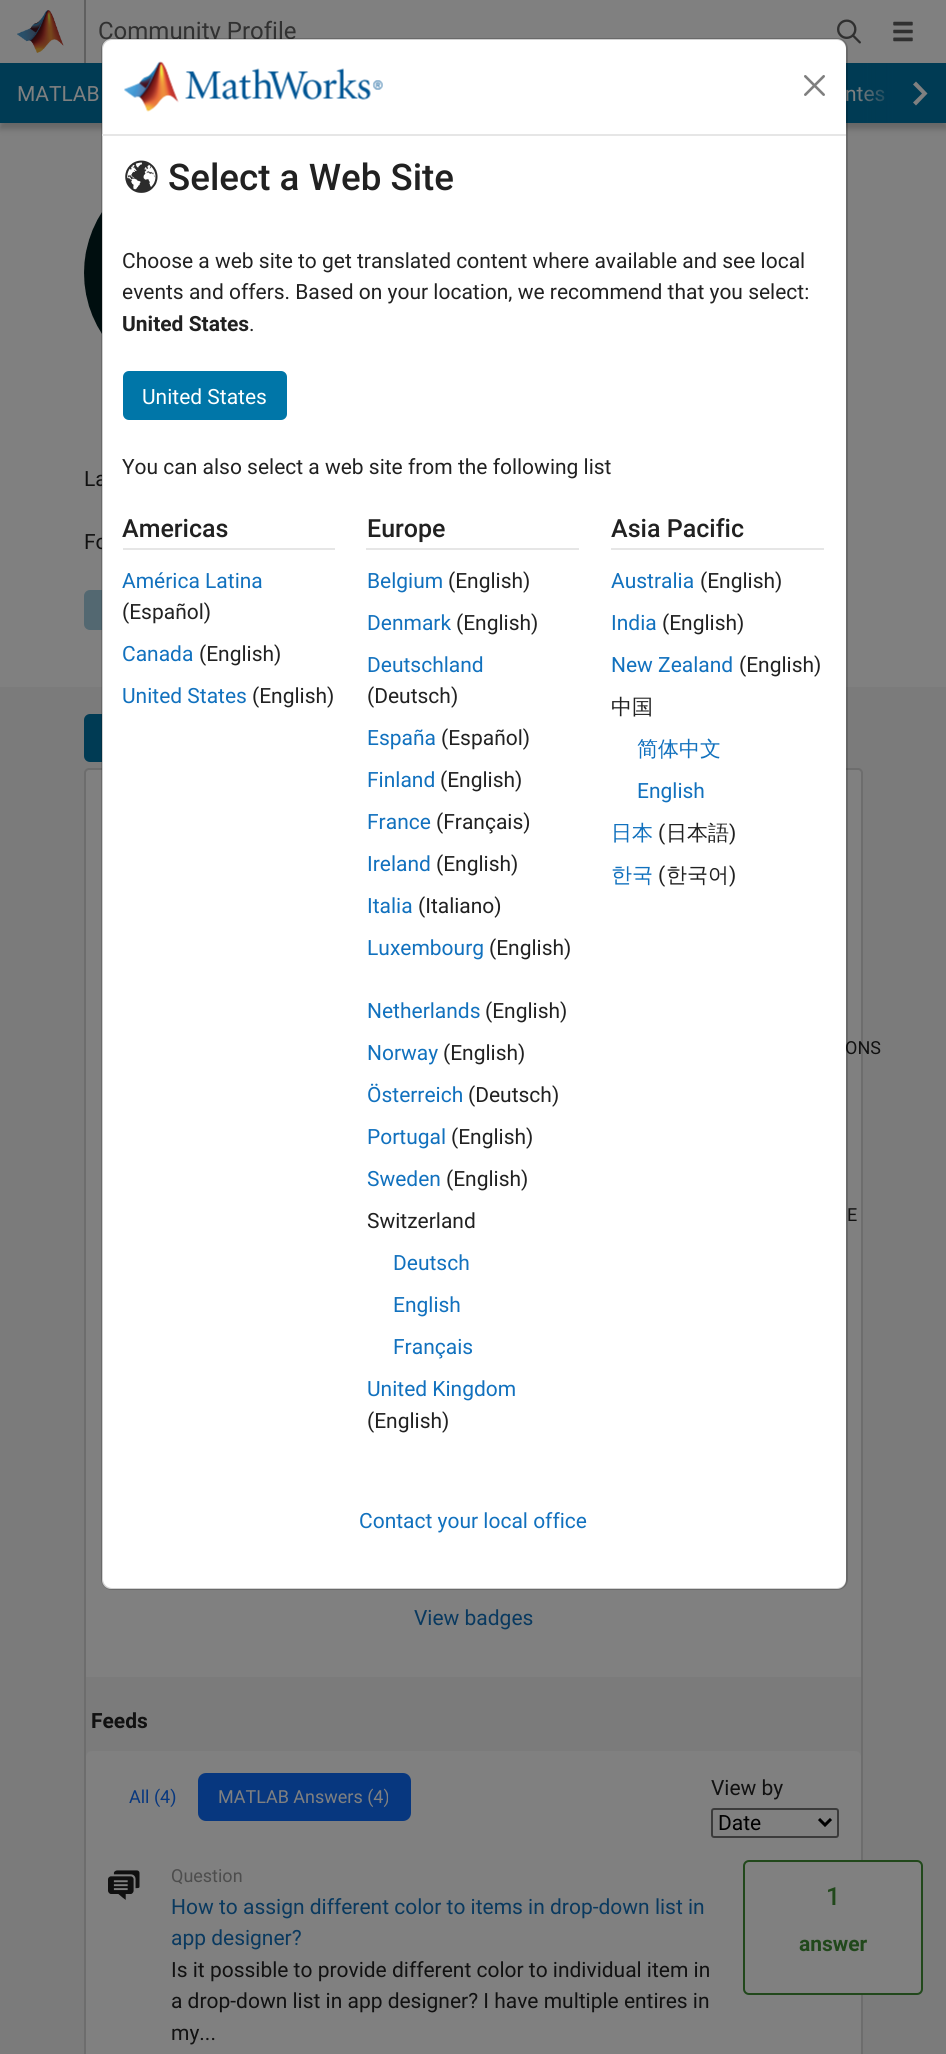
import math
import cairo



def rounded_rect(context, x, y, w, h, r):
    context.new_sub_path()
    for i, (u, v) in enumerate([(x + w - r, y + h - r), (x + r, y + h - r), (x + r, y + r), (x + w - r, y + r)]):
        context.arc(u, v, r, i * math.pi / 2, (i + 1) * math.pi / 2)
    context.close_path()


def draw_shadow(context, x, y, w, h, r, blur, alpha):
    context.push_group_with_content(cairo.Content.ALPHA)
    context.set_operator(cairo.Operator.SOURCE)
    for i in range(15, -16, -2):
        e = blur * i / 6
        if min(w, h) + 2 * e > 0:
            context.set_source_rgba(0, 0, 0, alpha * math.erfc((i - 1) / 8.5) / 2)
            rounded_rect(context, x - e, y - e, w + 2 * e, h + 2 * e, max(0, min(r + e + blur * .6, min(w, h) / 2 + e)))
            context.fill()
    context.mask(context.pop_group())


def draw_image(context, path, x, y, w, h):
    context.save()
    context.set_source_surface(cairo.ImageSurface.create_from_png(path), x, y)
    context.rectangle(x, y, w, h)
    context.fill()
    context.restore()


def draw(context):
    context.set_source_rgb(128 / 255, 128 / 255, 128 / 255)
    context.paint()
    context.set_source_rgb(96 / 255, 96 / 255, 96 / 255)
    context.rectangle(84, 0, 2, 63)
    context.fill()
    draw_image(context, "images/1.png", 17, 10, 47, 43)
    draw_image(context, "images/2.png", 837, 19, 24, 25)
    draw_image(context, "images/3.png", 893, 21, 20, 21)
    context.set_source_rgb(0, 0, 0)
    draw_shadow(context, 0, 69, 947, 60, 0, 3, 0.2)
    context.set_source_rgb(0, 59 / 255, 84 / 255)
    context.rectangle(0, 63, 894, 60)
    context.fill()
    context.rectangle(929, 63, 17, 60)
    context.fill()
    draw_image(context, "images/7.png", 84, 212, 18, 122)
    context.set_source_rgb(83 / 255, 104 / 255, 113 / 255)
    rounded_rect(context, 85, 591, 108, 38, 5)
    context.fill_preserve()
    context.stroke()
    context.set_source_rgb(123 / 255, 123 / 255, 123 / 255)
    context.rectangle(0, 687, 946, 1367)
    context.fill()
    context.set_source_rgb(0, 59 / 255, 84 / 255)
    rounded_rect(context, 85, 715, 162, 46, 5)
    context.fill_preserve()
    context.stroke()
    context.set_source_rgb(128 / 255, 128 / 255, 128 / 255)
    rounded_rect(context, 85, 769, 777, 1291, 4)
    context.fill_preserve()
    context.set_source_rgb(109 / 255, 109 / 255, 109 / 255)
    context.stroke()
    context.set_source_rgb(123 / 255, 123 / 255, 123 / 255)
    context.rectangle(86, 1677, 775, 80)
    context.fill()
    context.set_source_rgb(128 / 255, 128 / 255, 128 / 255)
    rounded_rect(context, 86, 1751, 775, 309, 6)
    context.fill()
    context.set_source_rgb(7 / 255, 55 / 255, 127 / 255)
    rounded_rect(context, 198, 1773, 213, 48, 8)
    context.fill()
    rounded_rect(context, 712, 1809, 126, 28, 2)
    context.set_source_rgb(59 / 255, 59 / 255, 59 / 255)
    context.stroke()
    context.new_path()
    context.move_to(819, 1819)
    context.line_to(825, 1825)
    context.line_to(831, 1819)
    context.set_source_rgb(0, 0, 0)
    context.set_line_width(3)
    context.stroke()
    draw_image(context, "images/8.png", 108, 1870, 32, 30)
    context.set_source_rgb(128 / 255, 128 / 255, 128 / 255)
    rounded_rect(context, 744, 1861, 178, 133, 5)
    context.fill_preserve()
    context.set_source_rgb(33 / 255, 72 / 255, 27 / 255)
    context.set_line_width(2)
    context.stroke()
    context.select_font_face("Roboto")
    context.set_font_size(24)
    context.set_source_rgb(49 / 255, 49 / 255, 49 / 255)
    context.move_to(98, 39)
    context.show_text("Community Profile")
    context.set_font_size(21)
    context.set_source_rgb(128 / 255, 128 / 255, 128 / 255)
    context.move_to(17, 101)
    context.show_text("MATLAB")
    context.move_to(845, 101)
    context.show_text("ntes")
    gradient = cairo.LinearGradient(857, 93, 932, 93)
    gradient.add_color_stop_rgba(0, 0, 59 / 255, 84 / 255, 0)
    gradient.add_color_stop_rgba(0.5, 0, 59 / 255, 84 / 255, 1)
    gradient.add_color_stop_rgba(1, 0, 59 / 255, 84 / 255, 1)
    context.set_source(gradient)
    context.rectangle(858, 63, 71, 60)
    context.fill()
    context.set_source_rgb(128 / 255, 128 / 255, 128 / 255)
    context.new_path()
    context.move_to(916, 81.5)
    context.line_to(913, 84.5)
    context.line_to(922, 93.5)
    context.line_to(913, 102.5)
    context.line_to(916, 105.5)
    context.line_to(927.5, 93.5)
    context.close_path()
    context.fill()
    context.set_source_rgb(17 / 255, 17 / 255, 17 / 255)
    context.move_to(84, 486)
    context.show_text("La")
    context.move_to(84, 549)
    context.show_text("Fo")
    context.set_source_rgb(1, 1, 1)
    rounded_rect(context, 102, 39, 744, 1550, 9)
    context.fill()
    context.set_font_size(18)
    context.set_source_rgb(17 / 255, 17 / 255, 17 / 255)
    context.move_to(845, 1054)
    context.show_text("ONS")
    rounded_rect(context, 102, 39, 745, 1550, 10)
    context.set_source_rgba(0, 0, 0, 0.18)
    context.stroke()
    draw_image(context, "images/6.png", 125, 160, 33, 33)
    context.set_font_size(21)
    context.set_source_rgb(17 / 255, 113 / 255, 190 / 255)
    context.move_to(359, 1528)
    context.show_text("Contact your local office")
    context.set_source_rgb(33 / 255, 33 / 255, 33 / 255)
    context.move_to(729, 882)
    context.show_text(")")
    context.select_font_face("WenQuanYi Zen Hei Medium")
    context.move_to(666, 882)
    context.show_text("한국어")
    context.select_font_face("Roboto")
    context.move_to(658, 882)
    context.show_text("(")
    context.select_font_face("WenQuanYi Zen Hei Medium")
    context.set_source_rgb(17 / 255, 113 / 255, 190 / 255)
    context.move_to(611, 882)
    context.show_text("한국")
    context.select_font_face("Roboto")
    context.set_source_rgb(33 / 255, 33 / 255, 33 / 255)
    context.move_to(729, 840)
    context.show_text(")")
    context.select_font_face("WenQuanYi Zen Hei Medium")
    context.move_to(666, 840)
    context.show_text("日本語")
    context.select_font_face("Roboto")
    context.move_to(658, 840)
    context.show_text("(")
    context.select_font_face("WenQuanYi Zen Hei Medium")
    context.set_source_rgb(17 / 255, 113 / 255, 190 / 255)
    context.move_to(611, 840)
    context.show_text("日本")
    context.select_font_face("Roboto")
    context.move_to(637, 798)
    context.show_text("English")
    context.select_font_face("WenQuanYi Zen Hei Medium")
    context.move_to(637, 756)
    context.show_text("简体中文")
    context.set_source_rgb(33 / 255, 33 / 255, 33 / 255)
    context.move_to(611, 714)
    context.show_text("中国")
    context.select_font_face("Roboto")
    context.move_to(739, 672)
    context.show_text("(English)")
    context.set_source_rgb(17 / 255, 113 / 255, 190 / 255)
    context.move_to(611, 672)
    context.show_text("New Zealand")
    context.set_source_rgb(33 / 255, 33 / 255, 33 / 255)
    context.move_to(662, 630)
    context.show_text("(English)")
    context.set_source_rgb(17 / 255, 113 / 255, 190 / 255)
    context.move_to(611, 630)
    context.show_text("India")
    context.set_source_rgb(33 / 255, 33 / 255, 33 / 255)
    context.move_to(700, 588)
    context.show_text("(English)")
    context.set_source_rgb(17 / 255, 113 / 255, 190 / 255)
    context.move_to(611, 588)
    context.show_text("Australia")
    context.select_font_face("Roboto Medium")
    context.set_font_size(25)
    context.set_source_rgb(33 / 255, 33 / 255, 33 / 255)
    context.move_to(611, 537)
    context.show_text("Asia Pacific")
    context.set_source_rgb(230 / 255, 230 / 255, 230 / 255)
    context.rectangle(611, 548, 213, 2)
    context.fill()
    context.select_font_face("Roboto")
    context.set_font_size(21)
    context.set_source_rgb(33 / 255, 33 / 255, 33 / 255)
    context.move_to(367, 1428)
    context.show_text("(English)")
    context.set_source_rgb(17 / 255, 113 / 255, 190 / 255)
    context.move_to(367, 1396)
    context.show_text("United Kingdom")
    context.move_to(393, 1354)
    context.show_text("Français")
    context.move_to(393, 1312)
    context.show_text("English")
    context.move_to(393, 1270)
    context.show_text("Deutsch")
    context.set_source_rgb(33 / 255, 33 / 255, 33 / 255)
    context.move_to(367, 1228)
    context.show_text("Switzerland")
    context.move_to(446, 1186)
    context.show_text("(English)")
    context.set_source_rgb(17 / 255, 113 / 255, 190 / 255)
    context.move_to(367, 1186)
    context.show_text("Sweden")
    context.set_source_rgb(33 / 255, 33 / 255, 33 / 255)
    context.move_to(451, 1144)
    context.show_text("(English)")
    context.set_source_rgb(17 / 255, 113 / 255, 190 / 255)
    context.move_to(367, 1144)
    context.show_text("Portugal")
    context.set_source_rgb(33 / 255, 33 / 255, 33 / 255)
    context.move_to(468, 1102)
    context.show_text("(Deutsch)")
    context.set_source_rgb(17 / 255, 113 / 255, 190 / 255)
    context.move_to(367, 1102)
    context.show_text("Österreich")
    context.set_source_rgb(33 / 255, 33 / 255, 33 / 255)
    context.move_to(443, 1060)
    context.show_text("(English)")
    context.set_source_rgb(17 / 255, 113 / 255, 190 / 255)
    context.move_to(367, 1060)
    context.show_text("Norway")
    context.set_source_rgb(33 / 255, 33 / 255, 33 / 255)
    context.move_to(485, 1018)
    context.show_text("(English)")
    context.set_source_rgb(17 / 255, 113 / 255, 190 / 255)
    context.move_to(367, 1018)
    context.show_text("Netherlands")
    context.set_source_rgb(33 / 255, 33 / 255, 33 / 255)
    context.move_to(489, 955)
    context.show_text("(English)")
    context.set_source_rgb(17 / 255, 113 / 255, 190 / 255)
    context.move_to(367, 955)
    context.show_text("Luxembourg")
    context.set_source_rgb(33 / 255, 33 / 255, 33 / 255)
    context.move_to(418, 913)
    context.show_text("(Italiano)")
    context.set_source_rgb(17 / 255, 113 / 255, 190 / 255)
    context.move_to(367, 913)
    context.show_text("Italia")
    context.set_source_rgb(33 / 255, 33 / 255, 33 / 255)
    context.move_to(436, 871)
    context.show_text("(English)")
    context.set_source_rgb(17 / 255, 113 / 255, 190 / 255)
    context.move_to(367, 871)
    context.show_text("Ireland")
    context.set_source_rgb(33 / 255, 33 / 255, 33 / 255)
    context.move_to(436, 829)
    context.show_text("(Français)")
    context.set_source_rgb(17 / 255, 113 / 255, 190 / 255)
    context.move_to(367, 829)
    context.show_text("France")
    context.set_source_rgb(33 / 255, 33 / 255, 33 / 255)
    context.move_to(440, 787)
    context.show_text("(English)")
    context.set_source_rgb(17 / 255, 113 / 255, 190 / 255)
    context.move_to(367, 787)
    context.show_text("Finland")
    context.set_source_rgb(33 / 255, 33 / 255, 33 / 255)
    context.move_to(441, 745)
    context.show_text("(Español)")
    context.set_source_rgb(17 / 255, 113 / 255, 190 / 255)
    context.move_to(367, 745)
    context.show_text("España")
    context.set_source_rgb(33 / 255, 33 / 255, 33 / 255)
    context.move_to(367, 703)
    context.show_text("(Deutsch)")
    context.set_source_rgb(17 / 255, 113 / 255, 190 / 255)
    context.move_to(367, 672)
    context.show_text("Deutschland")
    context.set_source_rgb(33 / 255, 33 / 255, 33 / 255)
    context.move_to(456, 630)
    context.show_text("(English)")
    context.set_source_rgb(17 / 255, 113 / 255, 190 / 255)
    context.move_to(367, 630)
    context.show_text("Denmark")
    context.set_source_rgb(33 / 255, 33 / 255, 33 / 255)
    context.move_to(448, 588)
    context.show_text("(English)")
    context.set_source_rgb(17 / 255, 113 / 255, 190 / 255)
    context.move_to(367, 588)
    context.show_text("Belgium")
    context.select_font_face("Roboto Medium")
    context.set_font_size(25)
    context.set_source_rgb(33 / 255, 33 / 255, 33 / 255)
    context.move_to(367, 537)
    context.show_text("Europe")
    context.set_source_rgb(230 / 255, 230 / 255, 230 / 255)
    context.rectangle(366, 548, 213, 2)
    context.fill()
    context.select_font_face("Roboto")
    context.set_font_size(21)
    context.set_source_rgb(33 / 255, 33 / 255, 33 / 255)
    context.move_to(252, 703)
    context.show_text("(English)")
    context.set_source_rgb(17 / 255, 113 / 255, 190 / 255)
    context.move_to(122, 703)
    context.show_text("United States")
    context.set_source_rgb(33 / 255, 33 / 255, 33 / 255)
    context.move_to(199, 661)
    context.show_text("(English)")
    context.set_source_rgb(17 / 255, 113 / 255, 190 / 255)
    context.move_to(122, 661)
    context.show_text("Canada")
    context.set_source_rgb(33 / 255, 33 / 255, 33 / 255)
    context.move_to(122, 619)
    context.show_text("(Español)")
    context.set_source_rgb(17 / 255, 113 / 255, 190 / 255)
    context.move_to(122, 588)
    context.show_text("América Latina")
    context.select_font_face("Roboto Medium")
    context.set_font_size(25)
    context.set_source_rgb(33 / 255, 33 / 255, 33 / 255)
    context.move_to(122, 537)
    context.show_text("Americas")
    context.set_source_rgb(230 / 255, 230 / 255, 230 / 255)
    context.rectangle(123, 548, 212, 2)
    context.fill()
    context.select_font_face("Roboto")
    context.set_font_size(21)
    context.set_source_rgb(33 / 255, 33 / 255, 33 / 255)
    context.move_to(122, 474)
    context.show_text("You can also select a web site from the following list")
    context.set_source_rgb(0, 118 / 255, 168 / 255)
    rounded_rect(context, 124, 372, 162, 47, 5)
    context.fill_preserve()
    context.stroke()
    context.set_source_rgb(1, 1, 1)
    context.move_to(142, 404)
    context.show_text("United States")
    context.set_source_rgb(33 / 255, 33 / 255, 33 / 255)
    context.move_to(249, 331)
    context.show_text(".")
    context.select_font_face("Roboto", cairo.FontSlant.NORMAL, cairo.FontWeight.BOLD)
    context.move_to(122, 331)
    context.show_text("United States")
    context.select_font_face("Roboto")
    context.move_to(122, 299)
    context.show_text("events and offers. Based on your location, we recommend that you select:")
    context.move_to(122, 268)
    context.show_text("Choose a web site to get translated content where available and see local")
    context.select_font_face("Roboto Medium")
    context.set_font_size(36.75)
    context.move_to(168, 190)
    context.show_text("Select a Web Site")
    draw_image(context, "images/5.png", 804, 75, 21, 21)
    draw_image(context, "images/4.png", 124, 61, 259, 51)
    context.set_source_rgb(230 / 255, 230 / 255, 230 / 255)
    context.rectangle(102, 134, 744, 2)
    context.fill()
    context.select_font_face("Roboto")
    context.set_font_size(18)
    context.set_source_rgb(17 / 255, 17 / 255, 17 / 255)
    context.move_to(847, 1221)
    context.show_text("E")
    context.set_font_size(21)
    context.set_source_rgb(9 / 255, 57 / 255, 95 / 255)
    context.move_to(414, 1625)
    context.show_text("View badges")
    context.select_font_face("Roboto", cairo.FontSlant.NORMAL, cairo.FontWeight.BOLD)
    context.set_source_rgb(17 / 255, 17 / 255, 17 / 255)
    context.move_to(91, 1728)
    context.show_text("Feeds")
    context.select_font_face("Roboto")
    context.set_font_size(18)
    context.set_source_rgb(7 / 255, 55 / 255, 127 / 255)
    context.move_to(129, 1803)
    context.show_text("All (4)")
    context.set_source_rgb(128 / 255, 128 / 255, 128 / 255)
    context.move_to(218, 1803)
    context.show_text("MATLAB Answers (4)")
    context.set_font_size(21)
    context.set_source_rgb(17 / 255, 17 / 255, 17 / 255)
    context.move_to(711, 1795)
    context.show_text("View by")
    context.set_source_rgb(0, 0, 0)
    context.move_to(718, 1830)
    context.show_text("Date")
    context.set_font_size(18)
    context.set_source_rgb(77 / 255, 77 / 255, 77 / 255)
    context.move_to(171, 1882)
    context.show_text("Question")
    context.set_font_size(21)
    context.set_source_rgb(9 / 255, 57 / 255, 95 / 255)
    context.move_to(171, 1914)
    context.show_text("How to assign different color to items in drop-down list in")
    context.move_to(171, 1945)
    context.show_text("app designer?")
    context.set_source_rgb(17 / 255, 17 / 255, 17 / 255)
    context.move_to(171, 1977)
    context.show_text("Is it possible to provide different color to individual item in")
    context.move_to(171, 2008)
    context.show_text("a drop-down list in app designer? I have multiple entires in")
    context.move_to(171, 2040)
    context.show_text("my...")
    context.select_font_face("Roboto Medium")
    context.set_font_size(25)
    context.set_source_rgb(33 / 255, 72 / 255, 27 / 255)
    context.move_to(826, 1905)
    context.show_text("1")
    context.select_font_face("Roboto", cairo.FontSlant.NORMAL, cairo.FontWeight.BOLD)
    context.set_font_size(21)
    context.move_to(799, 1951)
    context.show_text("answer")


surface = cairo.ImageSurface(cairo.Format.RGB24, 946, 2054)
context = cairo.Context(surface)
options = cairo.FontOptions()
options.set_hint_metrics(cairo.HintMetrics.OFF)
options.set_hint_style(cairo.HintStyle.NONE)
context.set_font_options(options)
context.set_miter_limit(4)
draw(context)
surface.write_to_png("out.png")
